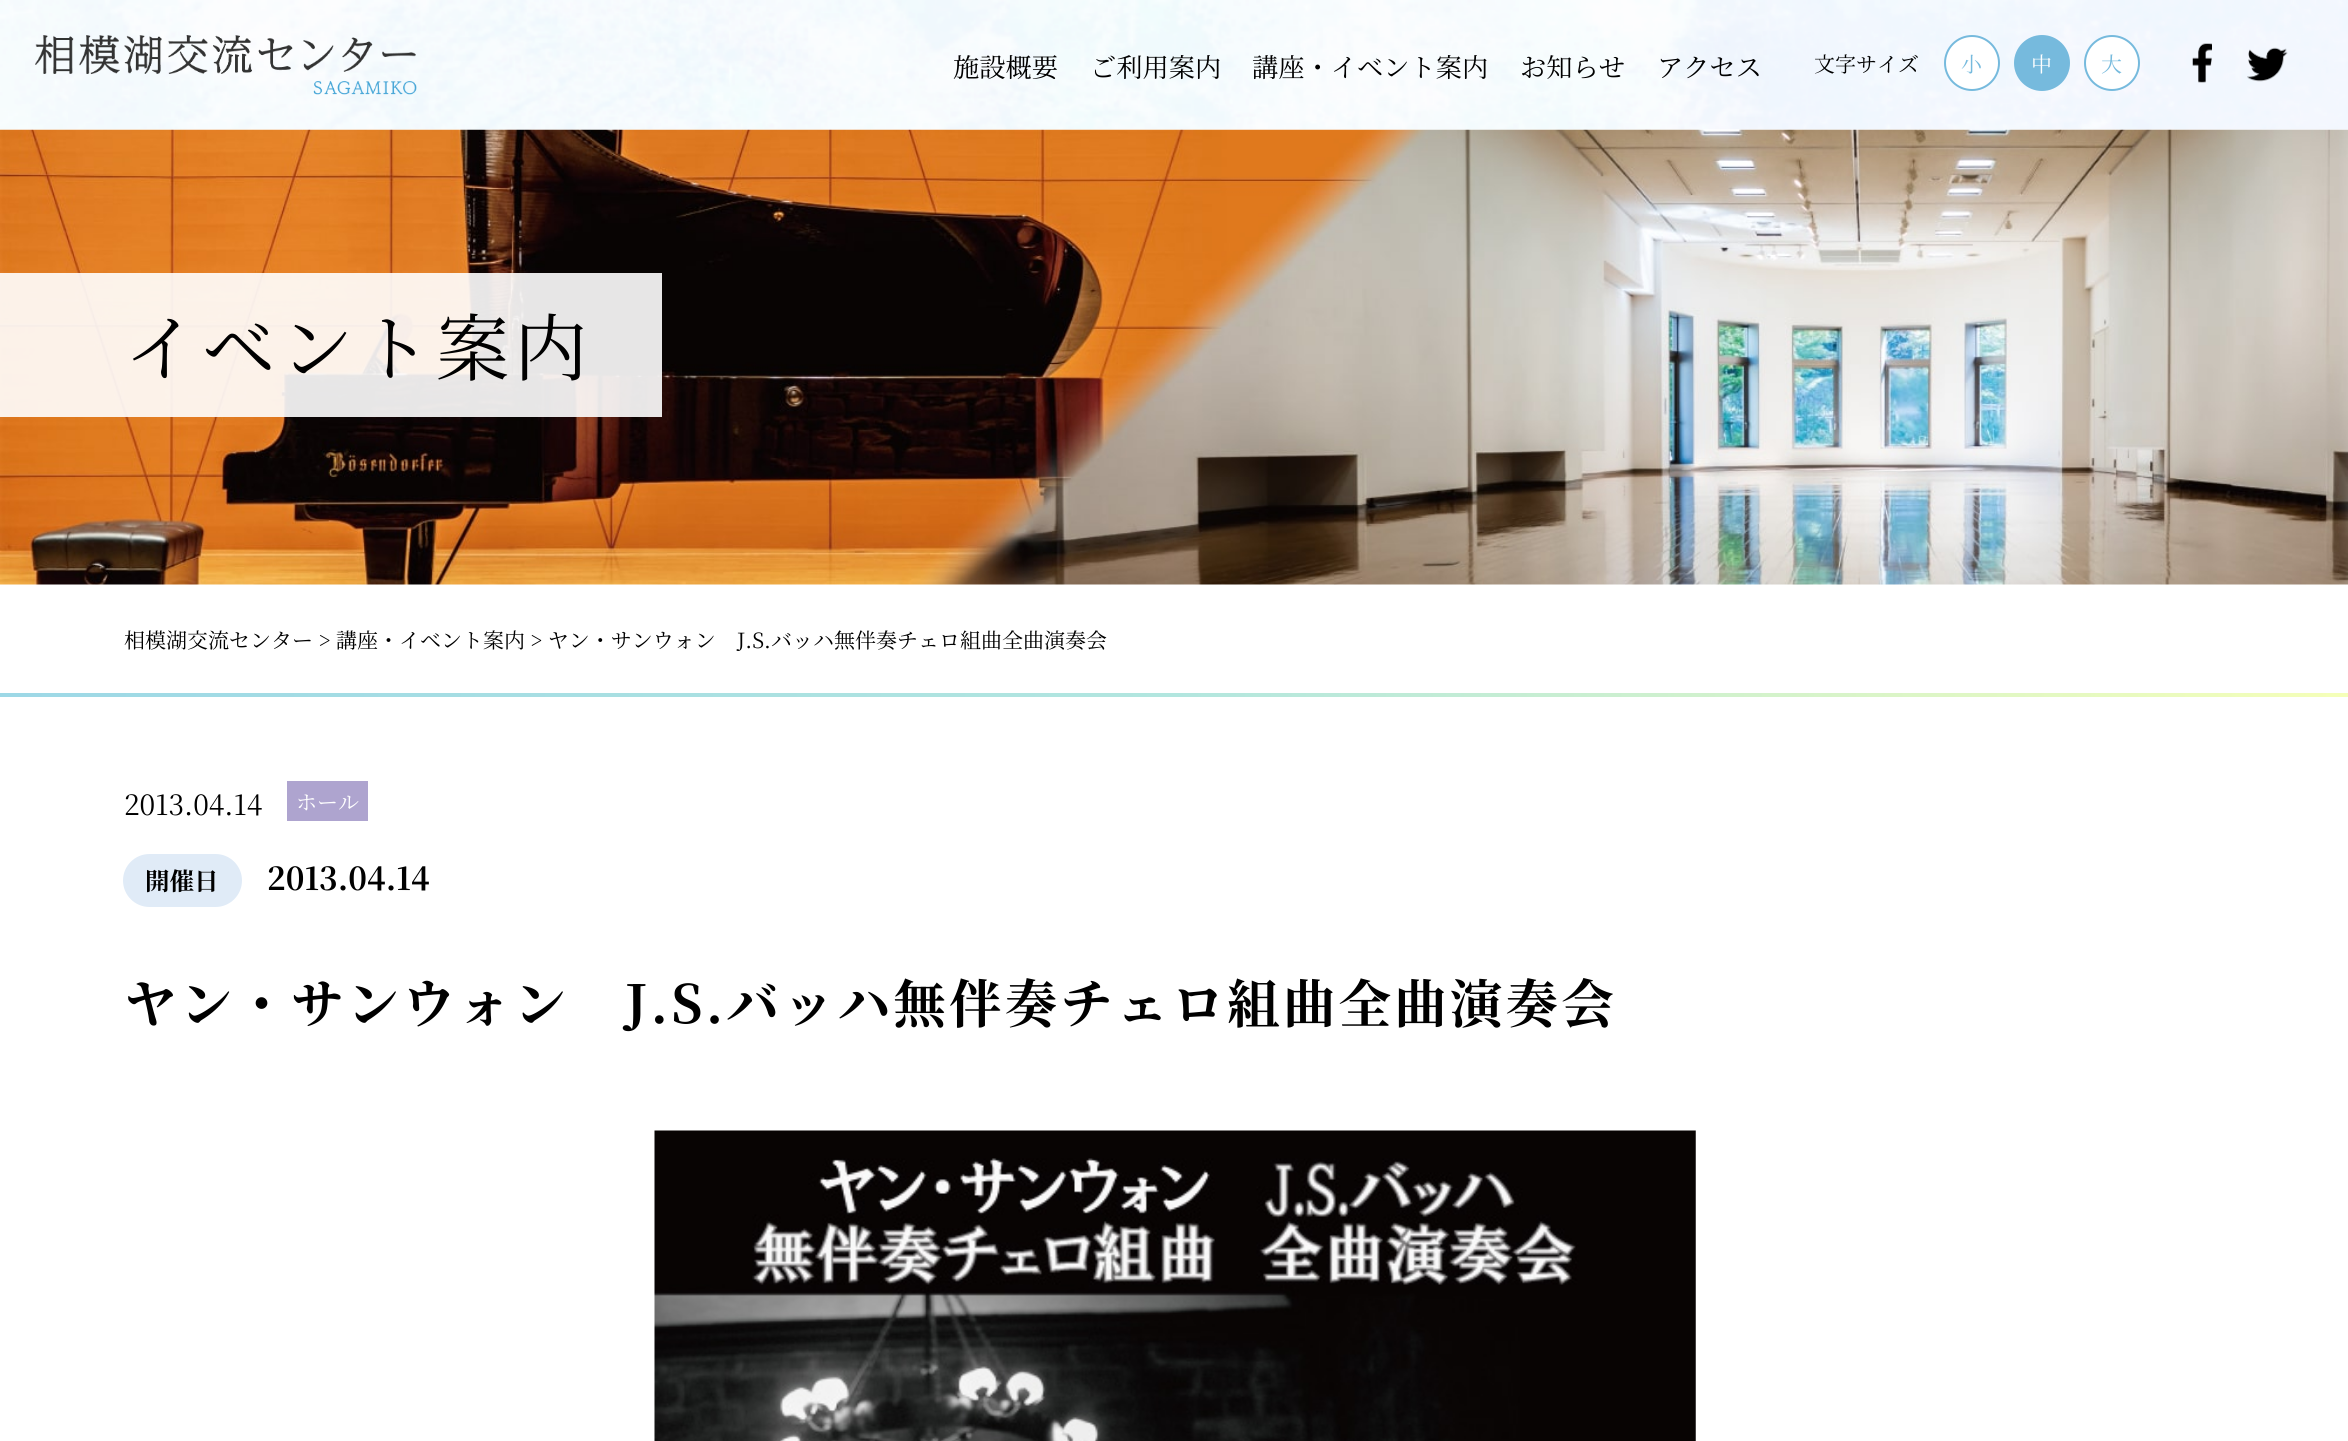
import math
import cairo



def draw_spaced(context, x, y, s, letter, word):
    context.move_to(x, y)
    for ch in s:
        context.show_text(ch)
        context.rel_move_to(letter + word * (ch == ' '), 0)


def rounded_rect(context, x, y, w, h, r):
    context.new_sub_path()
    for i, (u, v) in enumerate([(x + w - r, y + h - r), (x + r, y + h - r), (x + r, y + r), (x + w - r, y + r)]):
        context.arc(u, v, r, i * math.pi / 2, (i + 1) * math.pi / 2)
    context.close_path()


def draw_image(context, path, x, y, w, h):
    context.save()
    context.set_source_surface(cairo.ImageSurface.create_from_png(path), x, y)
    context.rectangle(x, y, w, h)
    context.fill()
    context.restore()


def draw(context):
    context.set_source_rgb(1, 1, 1)
    context.paint()
    draw_image(context, "images/1.png", 0, 0, 2348, 130)
    draw_image(context, "images/2.png", 35, 35, 382, 60)
    context.set_source_rgb(1, 1, 1)
    context.arc(1972, 63, 27, 0, 2 * math.pi)
    context.fill_preserve()
    context.set_source_rgb(118 / 255, 186 / 255, 221 / 255)
    context.stroke()
    context.arc(2042, 63, 27, 0, 2 * math.pi)
    context.fill_preserve()
    context.stroke()
    context.set_source_rgb(1, 1, 1)
    context.arc(2112, 63, 27, 0, 2 * math.pi)
    context.fill_preserve()
    context.set_source_rgb(118 / 255, 186 / 255, 221 / 255)
    context.stroke()
    draw_image(context, "images/3.png", 2192, 43, 20, 40)
    draw_image(context, "images/4.png", 2247, 47, 41, 35)
    draw_image(context, "images/5.png", 0, 129, 2348, 456)
    context.set_source_rgba(1, 1, 1, 0.9)
    context.rectangle(124, 273, 538, 144)
    context.fill()
    context.rectangle(0, 273, 124, 144)
    context.fill()
    gradient = cairo.LinearGradient(0, 695, 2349, 695)
    gradient.add_color_stop_rgba(0, 157 / 255, 216 / 255, 230 / 255, 1)
    gradient.add_color_stop_rgba(0.5, 178 / 255, 230 / 255, 223 / 255, 1)
    gradient.add_color_stop_rgba(1, 245 / 255, 1, 184 / 255, 1)
    context.set_source(gradient)
    context.rectangle(0, 693, 2348, 4)
    context.fill()
    context.set_source_rgb(174 / 255, 164 / 255, 207 / 255)
    context.rectangle(287, 781, 81, 40)
    context.fill()
    context.set_source_rgb(224 / 255, 235 / 255, 247 / 255)
    rounded_rect(context, 123, 854, 119, 53, 26.5)
    context.fill()
    draw_image(context, "images/6.png", 654, 1130, 1042, 311)
    context.select_font_face("Noto Serif JP")
    context.set_font_size(26.25)
    context.set_source_rgb(0, 0, 0)
    context.move_to(953, 77)
    context.show_text("施設概要")
    context.move_to(1090, 77)
    context.show_text("ご利用案内")
    context.move_to(1252, 77)
    context.show_text("講座・イベント案内")
    context.move_to(1520, 77)
    context.show_text("お知らせ")
    context.move_to(1657, 77)
    context.show_text("アクセス")
    context.set_font_size(21)
    context.move_to(1814, 72)
    context.show_text("文字サイズ")
    context.set_source_rgb(118 / 255, 186 / 255, 221 / 255)
    context.move_to(1961, 72)
    context.show_text("小")
    context.set_source_rgb(1, 1, 1)
    context.move_to(2031, 72)
    context.show_text("中")
    context.set_source_rgb(118 / 255, 186 / 255, 221 / 255)
    context.move_to(2101, 72)
    context.show_text("大")
    context.set_font_size(73.5)
    context.set_source_rgb(0, 0, 0)
    draw_spaced(context, 124, 375, "イベント案内", 4.5, 0)
    context.set_font_size(21)
    context.move_to(124, 648)
    context.show_text("相模湖交流センター > 講座・イベント案内 > ヤン・サンウォン　J.S.バッハ無伴奏チェロ組曲全曲演奏会")
    context.set_font_size(28)
    context.move_to(124, 815)
    context.show_text("2013.04.14")
    context.set_font_size(21)
    context.set_source_rgb(1, 1, 1)
    context.move_to(296, 810)
    context.show_text("ホール")
    context.select_font_face("Noto Serif JP", cairo.FontSlant.NORMAL, cairo.FontWeight.BOLD)
    context.set_font_size(24.5)
    context.set_source_rgb(0, 0, 0)
    context.move_to(145, 890)
    context.show_text("開催日")
    context.set_font_size(31.5)
    context.move_to(267, 890)
    context.show_text("2013.04.14")
    context.set_font_size(52.5)
    draw_spaced(context, 124, 1023, "ヤン・サンウォン　J.S.バッハ無伴奏チェロ組曲全曲演奏会", 3.15, 0)


surface = cairo.ImageSurface(cairo.Format.RGB24, 2348, 1441)
context = cairo.Context(surface)
options = cairo.FontOptions()
options.set_hint_metrics(cairo.HintMetrics.OFF)
options.set_hint_style(cairo.HintStyle.NONE)
context.set_font_options(options)
context.set_miter_limit(4)
draw(context)
surface.write_to_png("out.png")
